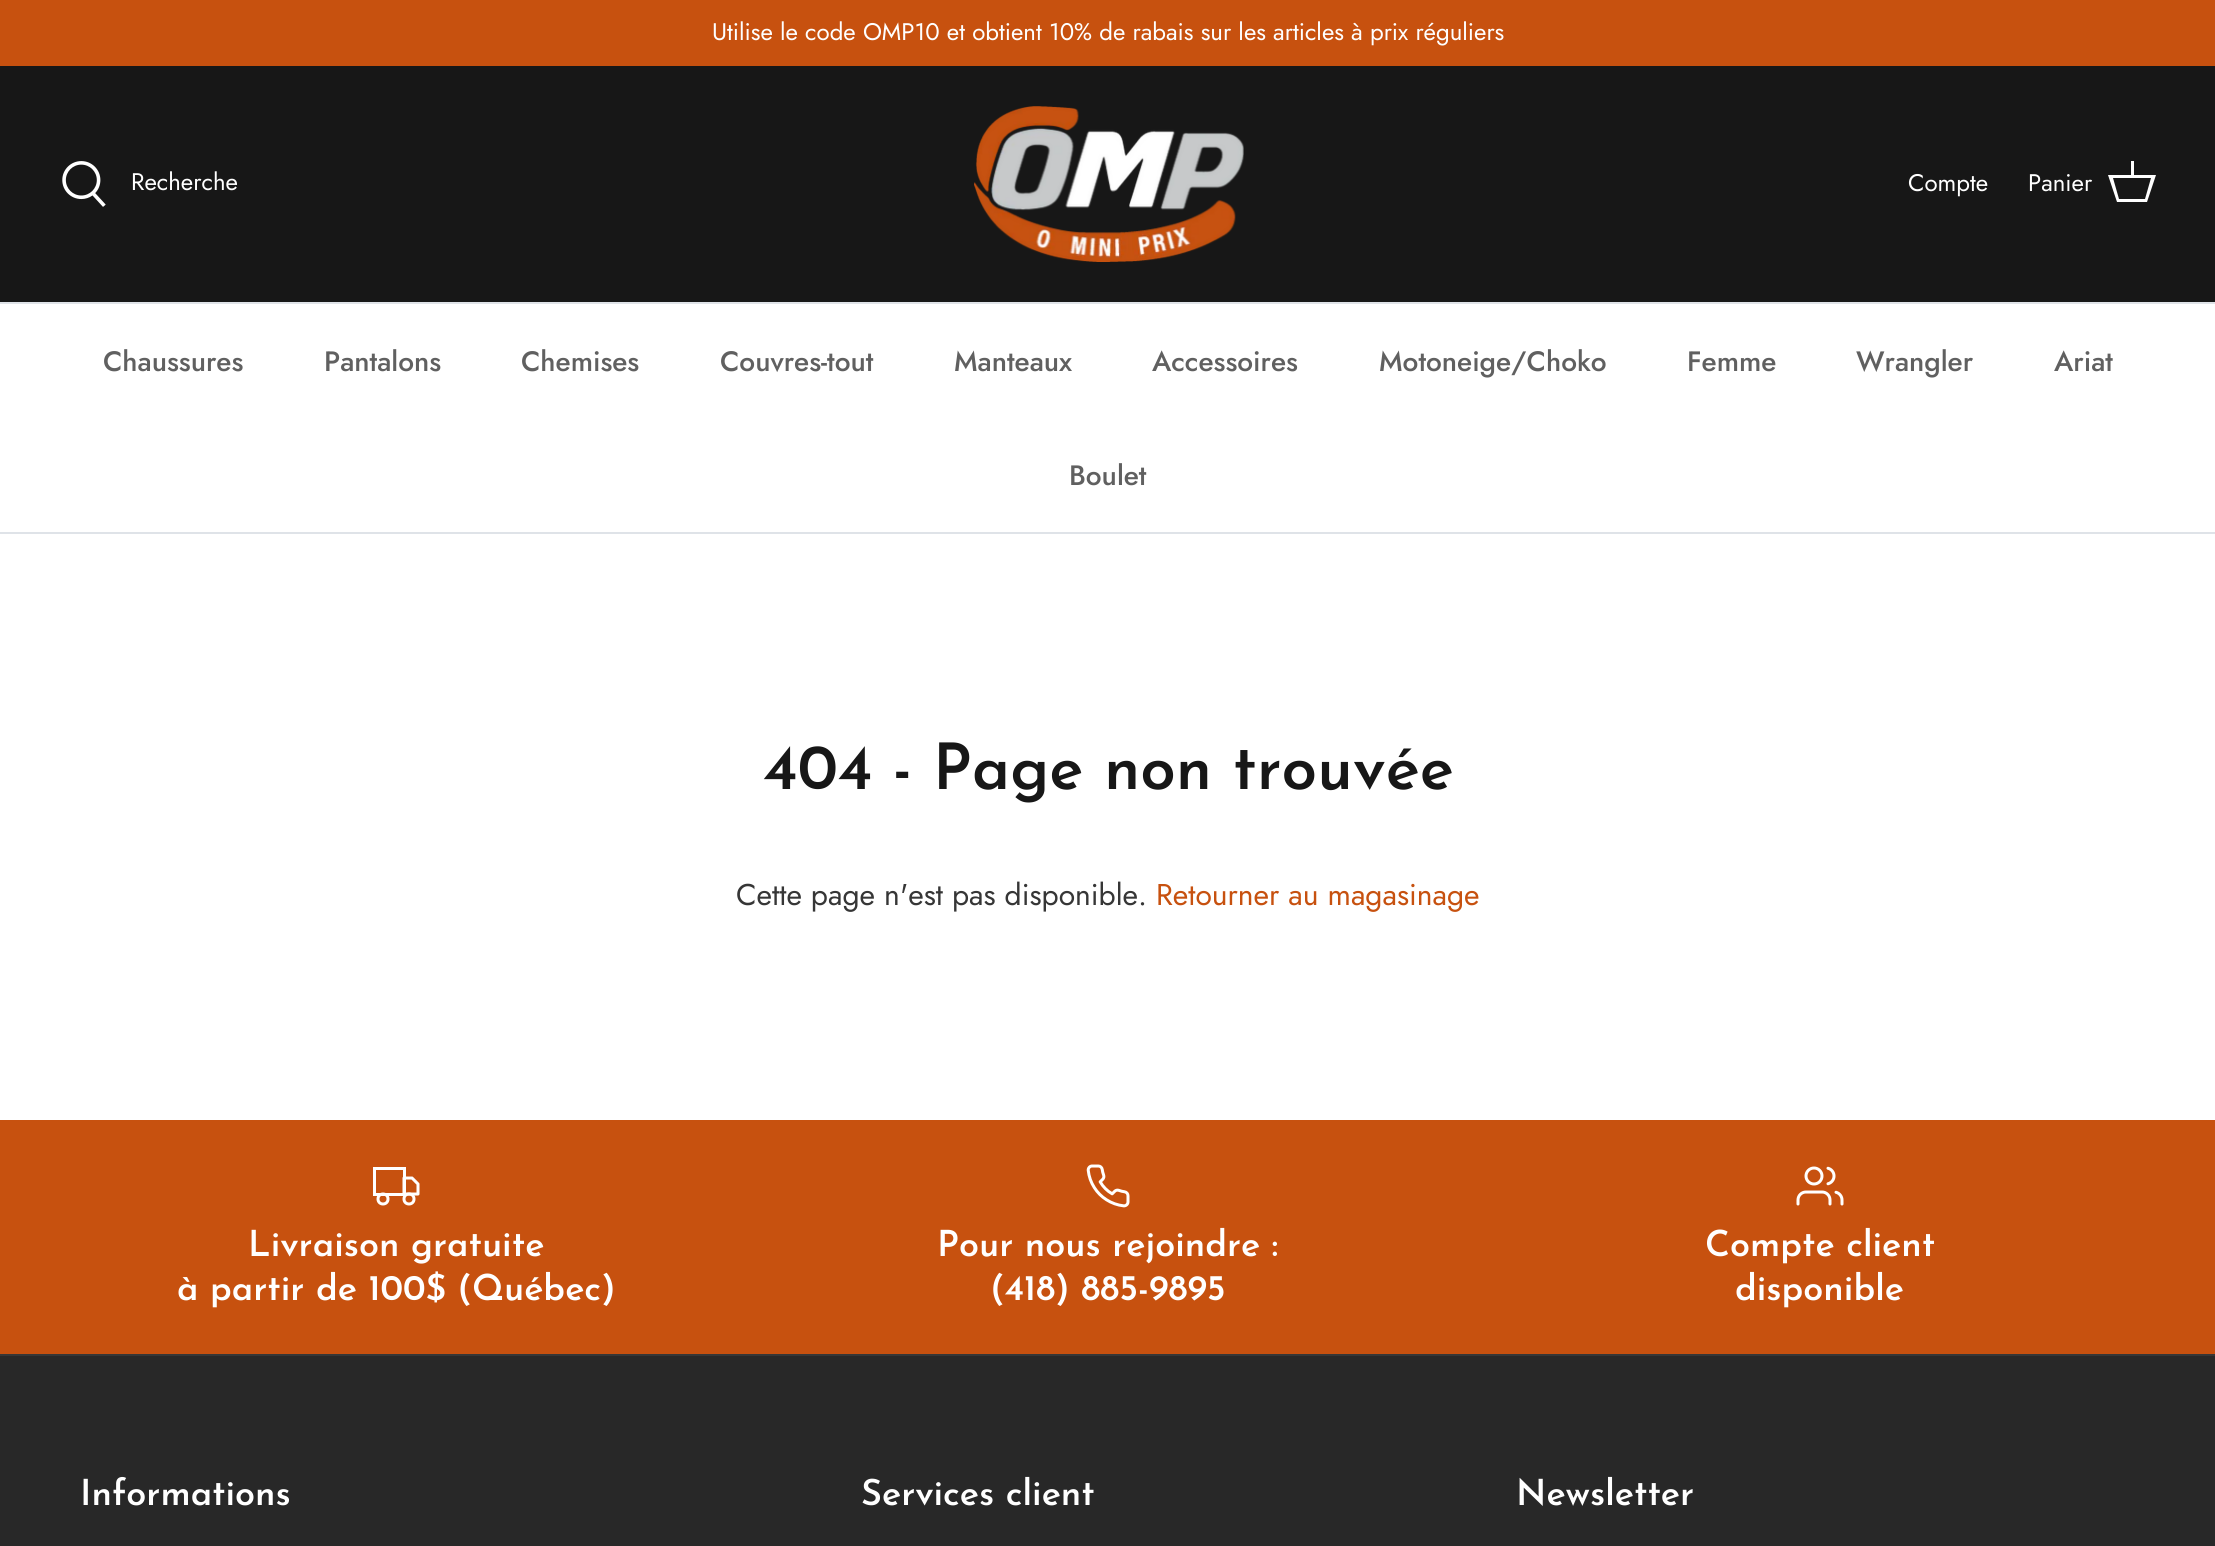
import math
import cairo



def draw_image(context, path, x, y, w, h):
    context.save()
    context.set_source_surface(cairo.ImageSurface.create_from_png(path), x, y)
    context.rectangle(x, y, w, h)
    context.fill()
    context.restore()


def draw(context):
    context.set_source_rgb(1, 1, 1)
    context.paint()
    context.set_source_rgb(199 / 255, 81 / 255, 15 / 255)
    context.rectangle(0, 0, 2215, 66)
    context.fill()
    context.set_source_rgb(23 / 255, 23 / 255, 23 / 255)
    context.rectangle(0, 66, 2215, 236)
    context.fill()
    context.set_source_rgb(223 / 255, 227 / 255, 232 / 255)
    context.rectangle(0, 302, 2215, 2)
    context.fill()
    draw_image(context, "images/1.png", 62, 161, 44, 46)
    draw_image(context, "images/2.png", 974, 106, 270, 156)
    context.set_source_rgb(1, 1, 1)
    context.new_path()
    context.move_to(2131, 175)
    context.line_to(2131, 161)
    context.line_to(2134, 161)
    context.line_to(2134, 175)
    context.line_to(2156, 175)
    context.line_to(2147, 202)
    context.line_to(2117, 202)
    context.line_to(2108, 175)
    context.close_path()
    context.move_to(2113, 178)
    context.line_to(2119, 199)
    context.line_to(2145, 199)
    context.line_to(2151, 178)
    context.close_path()
    context.fill()
    context.set_source_rgb(223 / 255, 227 / 255, 232 / 255)
    context.rectangle(0, 532, 2215, 2)
    context.fill()
    context.set_source_rgb(40 / 255, 40 / 255, 40 / 255)
    context.rectangle(0, 1356, 2215, 190)
    context.fill()
    context.set_source_rgb(199 / 255, 81 / 255, 15 / 255)
    context.rectangle(0, 1120, 2215, 234)
    context.fill()
    context.rectangle(374.5, 1168.5, 30, 26)
    context.set_source_rgb(1, 1, 1)
    context.set_line_width(3)
    context.stroke()
    context.new_path()
    context.move_to(404, 1178)
    context.line_to(412, 1178)
    context.line_to(418, 1184)
    context.line_to(418, 1194)
    context.line_to(404, 1194)
    context.close_path()
    context.set_line_cap(cairo.LineCap.ROUND)
    context.set_line_join(cairo.LineJoin.ROUND)
    context.stroke()
    context.arc(383, 1199, 5, 0, 2 * math.pi)
    context.set_line_cap(cairo.LineCap.BUTT)
    context.set_line_join(cairo.LineJoin.MITER)
    context.stroke()
    context.arc(409, 1199, 5, 0, 2 * math.pi)
    context.stroke()
    draw_image(context, "images/3.png", 1086, 1164, 44, 44)
    draw_image(context, "images/4.png", 1796, 1166, 48, 40)
    context.set_source_rgb(54 / 255, 54 / 255, 54 / 255)
    context.rectangle(0, 1354, 2215, 2)
    context.fill()
    context.select_font_face("Jost")
    context.set_font_size(24)
    context.set_source_rgb(1, 1, 1)
    context.move_to(712, 40)
    context.show_text("Utilise le code OMP10 et obtient 10% de rabais sur les articles à prix réguliers")
    context.move_to(131, 190)
    context.show_text("Recherche")
    context.move_to(1908, 191)
    context.show_text("Compte")
    context.move_to(2028, 191)
    context.show_text("Panier")
    context.select_font_face("Jost Medium")
    context.set_font_size(28)
    context.set_source_rgb(96 / 255, 96 / 255, 96 / 255)
    context.move_to(103, 371)
    context.show_text("Chaussures")
    context.move_to(324, 371)
    context.show_text("Pantalons")
    context.move_to(521, 371)
    context.show_text("Chemises")
    context.move_to(720, 371)
    context.show_text("Couvres-tout")
    context.move_to(954, 371)
    context.show_text("Manteaux")
    context.move_to(1152, 371)
    context.show_text("Accessoires")
    context.move_to(1379, 371)
    context.show_text("Motoneige/Choko")
    context.move_to(1687, 371)
    context.show_text("Femme")
    context.move_to(1856, 371)
    context.show_text("Wrangler")
    context.move_to(2054, 371)
    context.show_text("Ariat")
    context.move_to(1069, 485)
    context.show_text("Boulet")
    context.select_font_face("Josefin Sans SemiBold")
    context.set_font_size(64)
    context.set_source_rgb(23 / 255, 23 / 255, 23 / 255)
    context.move_to(763, 789)
    context.show_text("404 - Page non trouvée")
    context.select_font_face("Jost")
    context.set_font_size(30)
    context.set_source_rgb(54 / 255, 54 / 255, 54 / 255)
    context.move_to(736, 905)
    context.show_text("Cette page n'est pas disponible.")
    context.set_source_rgb(199 / 255, 81 / 255, 15 / 255)
    context.move_to(1156, 905)
    context.show_text("Retourner au magasinage")
    context.select_font_face("Josefin Sans SemiBold")
    context.set_font_size(36)
    context.set_source_rgb(1, 1, 1)
    context.move_to(248, 1256)
    context.show_text("Livraison gratuite")
    context.move_to(177, 1300)
    context.show_text("à partir de 100$ (Québec)")
    context.move_to(937, 1256)
    context.show_text("Pour nous rejoindre :")
    context.move_to(990, 1300)
    context.show_text("(418) 885-9895")
    context.move_to(1705, 1256)
    context.show_text("Compte client")
    context.move_to(1735, 1300)
    context.show_text("disponible")
    context.move_to(80, 1505)
    context.show_text("Informations")
    context.move_to(861, 1505)
    context.show_text("Services client")
    context.move_to(1516, 1505)
    context.show_text("Newsletter")


surface = cairo.ImageSurface(cairo.Format.RGB24, 2215, 1546)
context = cairo.Context(surface)
options = cairo.FontOptions()
options.set_hint_metrics(cairo.HintMetrics.OFF)
options.set_hint_style(cairo.HintStyle.NONE)
context.set_font_options(options)
context.set_miter_limit(4)
draw(context)
surface.write_to_png("out.png")
